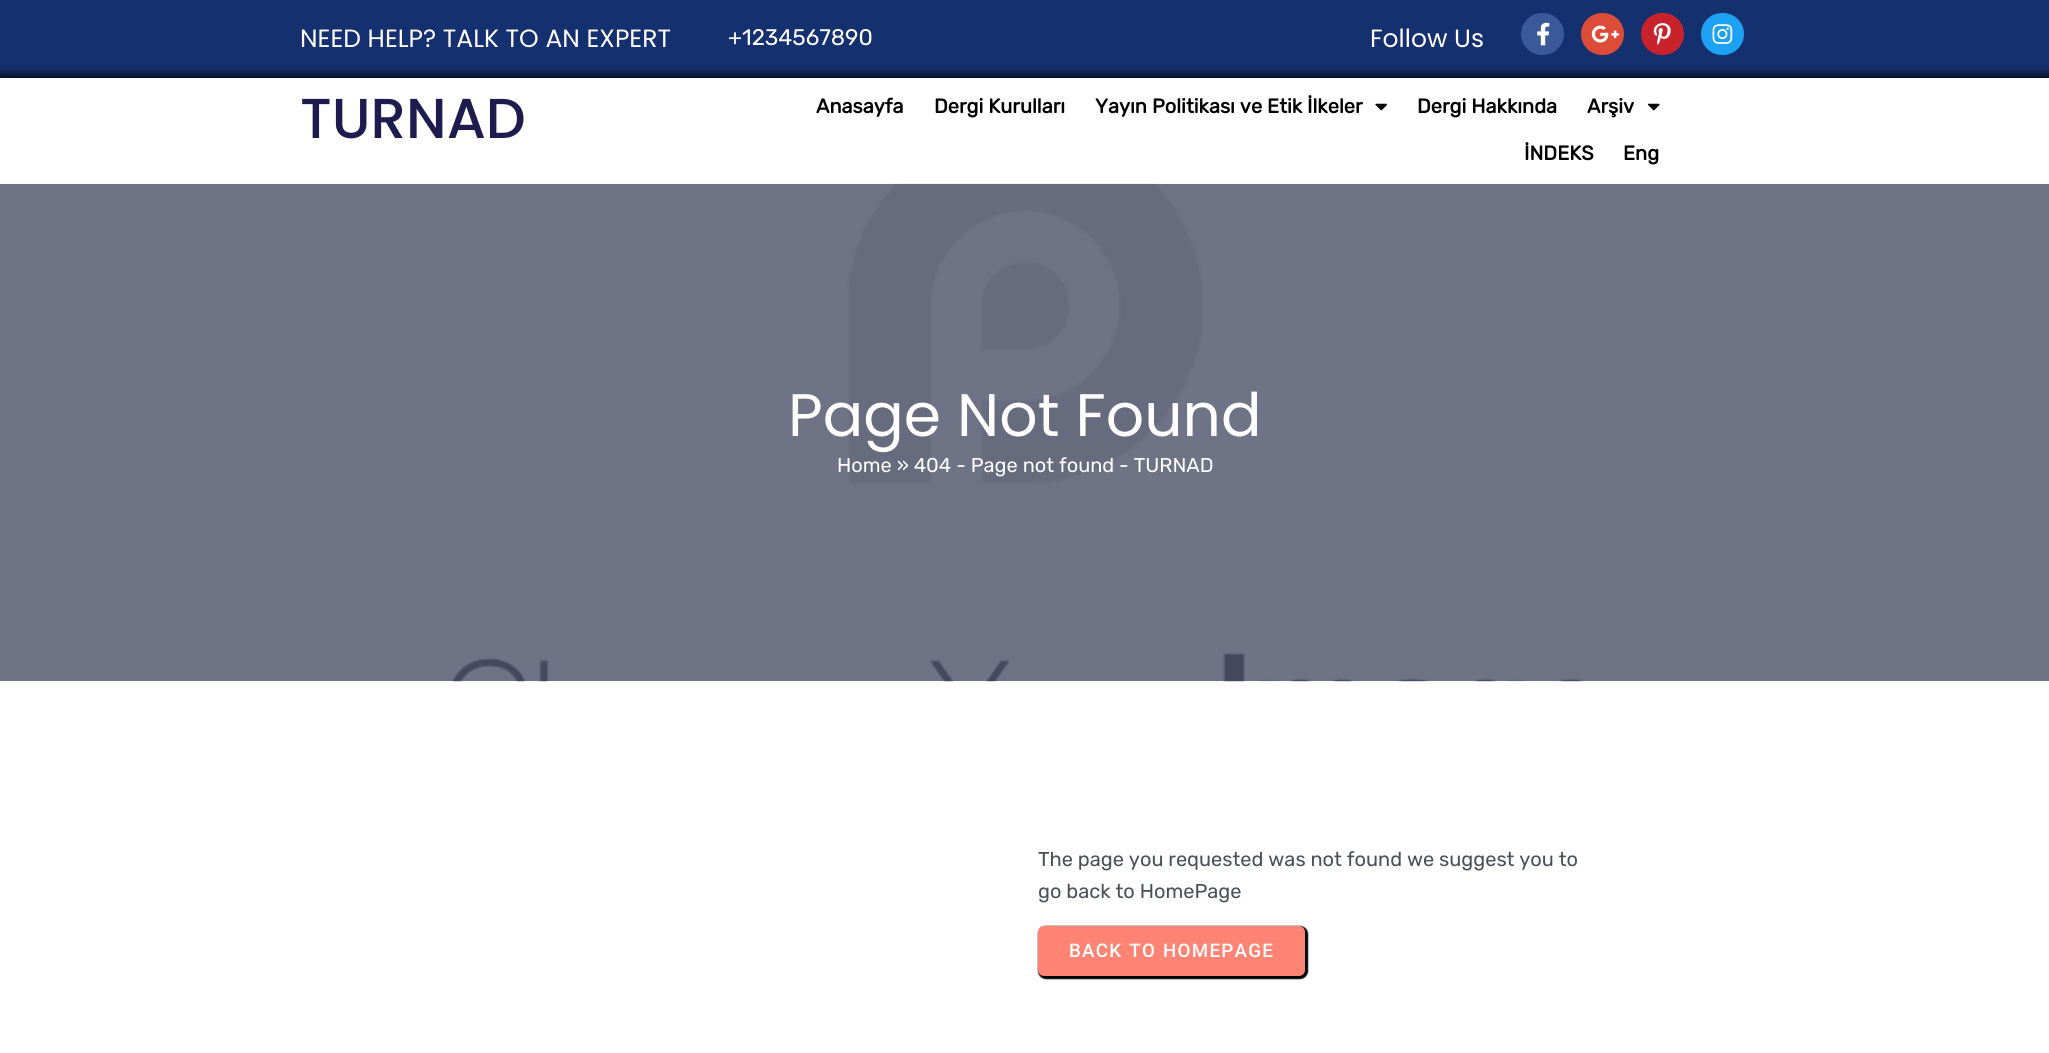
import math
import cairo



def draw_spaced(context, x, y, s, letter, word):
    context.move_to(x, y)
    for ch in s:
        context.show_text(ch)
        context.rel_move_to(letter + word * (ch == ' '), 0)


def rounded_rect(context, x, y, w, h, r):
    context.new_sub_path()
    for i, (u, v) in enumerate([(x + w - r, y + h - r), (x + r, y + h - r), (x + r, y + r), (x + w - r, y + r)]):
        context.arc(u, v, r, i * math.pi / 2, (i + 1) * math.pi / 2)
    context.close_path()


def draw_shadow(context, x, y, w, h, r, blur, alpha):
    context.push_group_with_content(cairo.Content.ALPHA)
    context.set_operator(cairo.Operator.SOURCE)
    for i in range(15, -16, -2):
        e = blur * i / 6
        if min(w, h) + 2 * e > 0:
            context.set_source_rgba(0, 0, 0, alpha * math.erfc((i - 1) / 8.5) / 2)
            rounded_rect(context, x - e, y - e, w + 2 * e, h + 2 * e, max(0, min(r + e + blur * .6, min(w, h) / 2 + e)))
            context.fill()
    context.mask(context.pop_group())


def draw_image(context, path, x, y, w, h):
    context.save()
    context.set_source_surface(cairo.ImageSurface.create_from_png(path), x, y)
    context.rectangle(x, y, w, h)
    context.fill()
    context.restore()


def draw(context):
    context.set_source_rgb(1, 1, 1)
    context.paint()
    context.set_source_rgb(20 / 255, 48 / 255, 111 / 255)
    context.rectangle(0, 0, 2049, 78)
    context.fill()
    context.set_source_rgb(59 / 255, 89 / 255, 152 / 255)
    rounded_rect(context, 1521, 13, 43, 42, 21)
    context.fill()
    draw_image(context, "images/1.png", 1537, 22, 13, 24)
    context.set_source_rgb(221 / 255, 75 / 255, 57 / 255)
    rounded_rect(context, 1581, 13, 43, 42, 21)
    context.fill()
    draw_image(context, "images/2.png", 1591, 25, 28, 18)
    context.set_source_rgb(200 / 255, 35 / 255, 44 / 255)
    rounded_rect(context, 1641, 13, 43, 42, 21)
    context.fill()
    draw_image(context, "images/3.png", 1653, 23, 18, 22)
    context.set_source_rgb(29 / 255, 161 / 255, 242 / 255)
    rounded_rect(context, 1701, 13, 43, 42, 21)
    context.fill()
    draw_image(context, "images/4.png", 1712, 24, 21, 20)
    context.set_source_rgb(0, 0, 0)
    draw_shadow(context, -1, 76, 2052, 109, 0, 6, 1)
    context.set_source_rgb(1, 1, 1)
    context.rectangle(0, 78, 2049, 106)
    context.fill()
    draw_image(context, "images/5.png", 1375, 103, 12, 8)
    draw_image(context, "images/6.png", 1648, 103, 12, 8)
    draw_image(context, "images/7.png", 0, 183, 2049, 499)
    context.set_source_rgb(0, 0, 0)
    draw_shadow(context, 1038, 926, 270, 53, 8, 0.5, 1)
    context.set_source_rgb(1, 132 / 255, 116 / 255)
    rounded_rect(context, 1038, 926, 267, 50, 6)
    context.fill()
    context.select_font_face("Poppins")
    context.set_font_size(25)
    context.set_source_rgb(1, 1, 1)
    context.move_to(300, 47)
    context.show_text("NEED HELP? TALK TO AN EXPERT")
    context.select_font_face("Rubik Light")
    context.set_font_size(22.5)
    context.move_to(728, 45)
    context.show_text("+1234567890")
    context.select_font_face("Poppins")
    context.set_font_size(25)
    context.move_to(1370, 47)
    context.show_text("Follow Us")
    context.select_font_face("Poppins Medium")
    context.set_font_size(56.25)
    context.set_source_rgb(30 / 255, 27 / 255, 79 / 255)
    context.move_to(300, 138)
    context.show_text("TURNAD")
    context.select_font_face("Rubik", cairo.FontSlant.NORMAL, cairo.FontWeight.BOLD)
    context.set_font_size(20)
    context.set_source_rgb(0, 0, 0)
    context.move_to(816, 113)
    context.show_text("Anasayfa")
    context.move_to(934, 113)
    context.show_text("Dergi Kurulları")
    context.move_to(1095, 113)
    context.show_text("Yayın Politikası ve Etik İlkeler")
    context.move_to(1417, 113)
    context.show_text("Dergi Hakkında")
    context.move_to(1587, 113)
    context.show_text("Arşiv")
    context.move_to(1524, 160)
    context.show_text("İNDEKS")
    context.move_to(1623, 160)
    context.show_text("Eng")
    context.select_font_face("Poppins")
    context.set_font_size(60)
    context.set_source_rgb(1, 1, 1)
    context.move_to(788, 436)
    context.show_text("Page Not Found")
    context.select_font_face("Rubik Light")
    context.set_font_size(20)
    context.move_to(837, 472)
    context.show_text("Home » 404 - Page not found - TURNAD")
    context.set_source_rgb(73 / 255, 80 / 255, 87 / 255)
    context.move_to(1038, 866)
    context.show_text("The page you requested was not found we suggest you to")
    context.move_to(1038, 898)
    context.show_text("go back to HomePage")
    context.select_font_face("Roboto Medium")
    context.set_font_size(18.75)
    context.set_source_rgb(1, 1, 1)
    draw_spaced(context, 1069, 957, "BACK TO HOMEPAGE", 1.25, 1)


surface = cairo.ImageSurface(cairo.Format.RGB24, 2049, 1053)
context = cairo.Context(surface)
options = cairo.FontOptions()
options.set_hint_metrics(cairo.HintMetrics.OFF)
options.set_hint_style(cairo.HintStyle.NONE)
context.set_font_options(options)
context.set_miter_limit(4)
draw(context)
surface.write_to_png("out.png")
